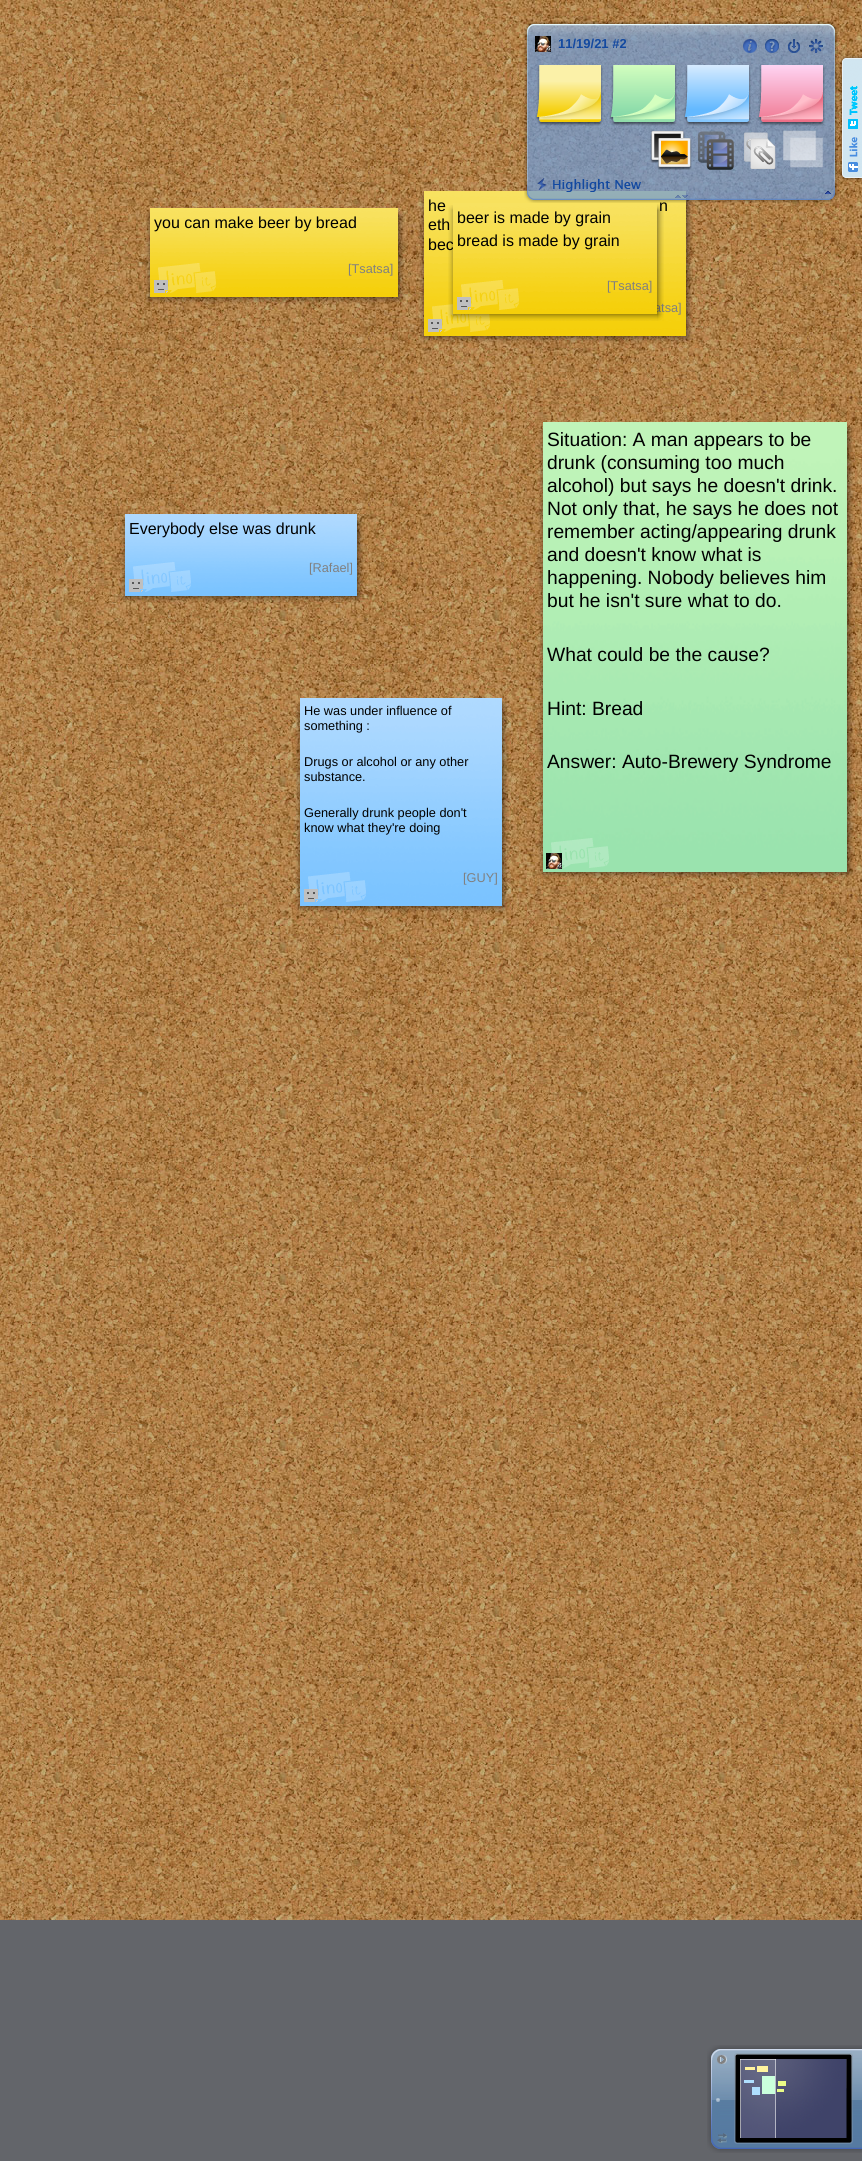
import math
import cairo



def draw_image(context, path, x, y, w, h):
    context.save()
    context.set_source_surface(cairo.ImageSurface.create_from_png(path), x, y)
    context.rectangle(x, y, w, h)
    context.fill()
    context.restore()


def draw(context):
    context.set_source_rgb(99 / 255, 101 / 255, 106 / 255)
    context.paint()
    draw_image(context, "images/21.png", 0, 0, 862, 1920)
    draw_image(context, "images/1.png", 524, 21, 314, 20)
    draw_image(context, "images/2.png", 524, 41, 314, 140)
    draw_image(context, "images/4.png", 535, 36, 16, 16)
    draw_image(context, "images/5.png", 743, 39, 14, 14)
    draw_image(context, "images/6.png", 765, 39, 14, 14)
    draw_image(context, "images/7.png", 788, 39, 12, 14)
    draw_image(context, "images/8.png", 809, 39, 14, 14)
    draw_image(context, "images/9.png", 535, 65, 68, 61)
    draw_image(context, "images/10.png", 609, 65, 68, 61)
    draw_image(context, "images/11.png", 683, 65, 68, 61)
    draw_image(context, "images/12.png", 757, 65, 68, 61)
    draw_image(context, "images/13.png", 650, 131, 42, 39)
    draw_image(context, "images/14.png", 698, 131, 36, 39)
    draw_image(context, "images/15.png", 744, 132, 32, 37)
    draw_image(context, "images/16.png", 783, 130, 40, 38)
    draw_image(context, "images/20.png", 838, 54, 24, 128)
    draw_image(context, "images/22.png", 419, 193, 5, 6)
    draw_image(context, "images/23.png", 424, 191, 262, 145)
    draw_image(context, "images/24.png", 686, 192, 7, 7)
    draw_image(context, "images/25.png", 419, 199, 5, 137)
    draw_image(context, "images/26.png", 686, 199, 7, 137)
    draw_image(context, "images/27.png", 419, 336, 5, 6)
    draw_image(context, "images/28.png", 424, 336, 262, 7)
    draw_image(context, "images/29.png", 686, 336, 7, 7)
    draw_image(context, "images/31.png", 432, 304, 58, 28)
    draw_image(context, "images/30.png", 428, 319, 14, 13)
    draw_image(context, "images/32.png", 145, 210, 5, 6)
    draw_image(context, "images/33.png", 150, 208, 248, 89)
    draw_image(context, "images/34.png", 398, 209, 7, 7)
    draw_image(context, "images/35.png", 145, 216, 5, 81)
    draw_image(context, "images/36.png", 398, 216, 7, 81)
    draw_image(context, "images/37.png", 145, 297, 5, 6)
    draw_image(context, "images/38.png", 150, 297, 248, 7)
    draw_image(context, "images/39.png", 398, 297, 7, 7)
    draw_image(context, "images/41.png", 158, 263, 58, 30)
    draw_image(context, "images/40.png", 154, 280, 14, 13)
    draw_image(context, "images/42.png", 448, 205, 5, 6)
    draw_image(context, "images/47.png", 448, 314, 5, 7)
    draw_image(context, "images/51.png", 120, 516, 5, 6)
    draw_image(context, "images/52.png", 125, 514, 232, 82)
    draw_image(context, "images/53.png", 357, 515, 7, 7)
    draw_image(context, "images/54.png", 120, 522, 5, 74)
    draw_image(context, "images/55.png", 357, 522, 7, 74)
    draw_image(context, "images/56.png", 120, 596, 5, 7)
    draw_image(context, "images/57.png", 125, 596, 232, 7)
    draw_image(context, "images/58.png", 357, 596, 7, 7)
    draw_image(context, "images/60.png", 133, 562, 58, 30)
    draw_image(context, "images/59.png", 129, 579, 14, 13)
    draw_image(context, "images/61.png", 538, 424, 5, 6)
    draw_image(context, "images/62.png", 543, 422, 304, 450)
    draw_image(context, "images/63.png", 847, 423, 7, 7)
    draw_image(context, "images/64.png", 538, 430, 5, 442)
    draw_image(context, "images/65.png", 847, 430, 7, 442)
    draw_image(context, "images/66.png", 538, 872, 5, 7)
    draw_image(context, "images/67.png", 543, 872, 304, 7)
    draw_image(context, "images/68.png", 847, 872, 7, 7)
    draw_image(context, "images/69.png", 551, 838, 58, 30)
    draw_image(context, "images/4.png", 546, 853, 16, 16)
    draw_image(context, "images/70.png", 295, 700, 5, 6)
    draw_image(context, "images/71.png", 300, 698, 202, 208)
    draw_image(context, "images/72.png", 502, 699, 7, 7)
    draw_image(context, "images/73.png", 295, 706, 5, 200)
    draw_image(context, "images/74.png", 502, 706, 7, 200)
    draw_image(context, "images/75.png", 295, 906, 5, 7)
    draw_image(context, "images/76.png", 300, 906, 202, 7)
    draw_image(context, "images/77.png", 502, 906, 7, 7)
    draw_image(context, "images/79.png", 308, 872, 58, 30)
    draw_image(context, "images/78.png", 304, 889, 14, 13)
    draw_image(context, "images/80.png", 707, 2045, 24, 108)
    draw_image(context, "images/81.png", 717, 2055, 10, 9)
    draw_image(context, "images/82.png", 717, 2133, 10, 10)
    draw_image(context, "images/83.png", 731, 2045, 131, 108)
    draw_image(context, "images/84.png", 734, 2053, 119, 91)
    context.set_source_rgb(1, 242 / 255, 147 / 255)
    context.rectangle(745, 2067, 10, 3)
    context.fill()
    context.rectangle(757, 2066, 11, 6)
    context.fill()
    context.set_source_rgb(166 / 255, 219 / 255, 1)
    context.rectangle(744, 2080, 10, 3)
    context.fill()
    context.set_source_rgb(196 / 255, 1, 216 / 255)
    context.rectangle(762, 2076, 13, 18)
    context.fill()
    context.set_source_rgb(166 / 255, 219 / 255, 1)
    context.rectangle(752, 2087, 8, 8)
    context.fill()
    context.set_source_rgba(1, 1, 1, 0.1)
    context.rectangle(740, 2059, 36, 79)
    context.fill()
    context.set_source_rgba(1, 1, 1, 0.55)
    context.rectangle(740, 2059, 1, 79)
    context.fill()
    context.rectangle(740, 2059, 36, 1)
    context.fill()
    context.rectangle(775, 2059, 1, 79)
    context.fill()
    context.set_source_rgb(234 / 255, 252 / 255, 134 / 255)
    context.rectangle(778, 2081, 8, 5)
    context.fill()
    context.rectangle(777, 2089, 7, 3)
    context.fill()
    context.select_font_face("Liberation Sans", cairo.FontSlant.NORMAL, cairo.FontWeight.BOLD)
    context.set_font_size(13)
    context.set_source_rgb(19 / 255, 73 / 255, 160 / 255)
    context.move_to(558, 48)
    context.show_text("11/19/21 #2")
    context.select_font_face("Liberation Sans")
    context.set_font_size(16)
    context.set_source_rgb(0, 0, 0)
    context.move_to(428, 211)
    context.show_text("he")
    context.move_to(659, 211)
    context.show_text("n")
    draw_image(context, "images/3.png", 524, 181, 314, 22)
    draw_image(context, "images/19.png", 675, 195, 13, 3)
    draw_image(context, "images/18.png", 825, 191, 6, 3)
    draw_image(context, "images/17.png", 537, 178, 104, 14)
    context.move_to(428, 230)
    context.show_text("eth")
    context.move_to(428, 250)
    context.show_text("bec")
    context.set_font_size(12.75)
    context.set_source_rgb(128 / 255, 128 / 255, 128 / 255)
    context.move_to(654, 312)
    context.show_text("atsa]")
    context.set_font_size(16)
    context.set_source_rgb(0, 0, 0)
    context.move_to(154, 228)
    context.show_text("you can make beer by bread")
    context.set_font_size(12.75)
    context.set_source_rgb(128 / 255, 128 / 255, 128 / 255)
    context.move_to(348, 273)
    context.show_text("[Tsatsa]")
    draw_image(context, "images/43.png", 453, 203, 204, 111)
    draw_image(context, "images/44.png", 657, 204, 7, 7)
    draw_image(context, "images/45.png", 448, 211, 5, 103)
    draw_image(context, "images/46.png", 657, 211, 7, 103)
    draw_image(context, "images/48.png", 453, 314, 204, 7)
    draw_image(context, "images/49.png", 657, 314, 7, 7)
    context.set_font_size(16)
    context.set_source_rgb(0, 0, 0)
    context.move_to(457, 223)
    context.show_text("beer is made by grain")
    context.move_to(457, 246)
    context.show_text("bread is made by grain")
    context.set_font_size(12.75)
    context.set_source_rgb(128 / 255, 128 / 255, 128 / 255)
    context.move_to(607, 290)
    context.show_text("[Tsatsa]")
    draw_image(context, "images/50.png", 461, 280, 58, 30)
    draw_image(context, "images/40.png", 457, 297, 14, 13)
    context.set_font_size(16)
    context.set_source_rgb(0, 0, 0)
    context.move_to(129, 534)
    context.show_text("Everybody else was drunk")
    context.set_font_size(12.75)
    context.set_source_rgb(128 / 255, 128 / 255, 128 / 255)
    context.move_to(309, 572)
    context.show_text("[Rafael]")
    context.set_font_size(19.25)
    context.set_source_rgb(0, 0, 0)
    context.move_to(547, 446)
    context.show_text("Situation: A man appears to be")
    context.move_to(547, 469)
    context.show_text("drunk (consuming too much")
    context.move_to(547, 492)
    context.show_text("alcohol) but says he doesn't drink.")
    context.move_to(547, 515)
    context.show_text("Not only that, he says he does not")
    context.move_to(547, 538)
    context.show_text("remember acting/appearing drunk")
    context.move_to(547, 561)
    context.show_text("and doesn't know what is")
    context.move_to(547, 584)
    context.show_text("happening. Nobody believes him")
    context.move_to(547, 607)
    context.show_text("but he isn't sure what to do.")
    context.move_to(547, 661)
    context.show_text("What could be the cause?")
    context.move_to(547, 715)
    context.show_text("Hint: Bread")
    context.move_to(547, 768)
    context.show_text("Answer: Auto-Brewery Syndrome")
    context.set_font_size(12.75)
    context.move_to(304, 715)
    context.show_text("He was under influence of")
    context.move_to(304, 730)
    context.show_text("something :")
    context.move_to(304, 766)
    context.show_text("Drugs or alcohol or any other")
    context.move_to(304, 781)
    context.show_text("substance.")
    context.move_to(304, 817)
    context.show_text("Generally drunk people don't")
    context.move_to(304, 832)
    context.show_text("know what they're doing")
    context.set_source_rgb(128 / 255, 128 / 255, 128 / 255)
    context.move_to(463, 882)
    context.show_text("[GUY]")


surface = cairo.ImageSurface(cairo.Format.RGB24, 862, 2161)
context = cairo.Context(surface)
options = cairo.FontOptions()
options.set_hint_metrics(cairo.HintMetrics.OFF)
options.set_hint_style(cairo.HintStyle.NONE)
context.set_font_options(options)
context.set_miter_limit(4)
draw(context)
surface.write_to_png("out.png")
